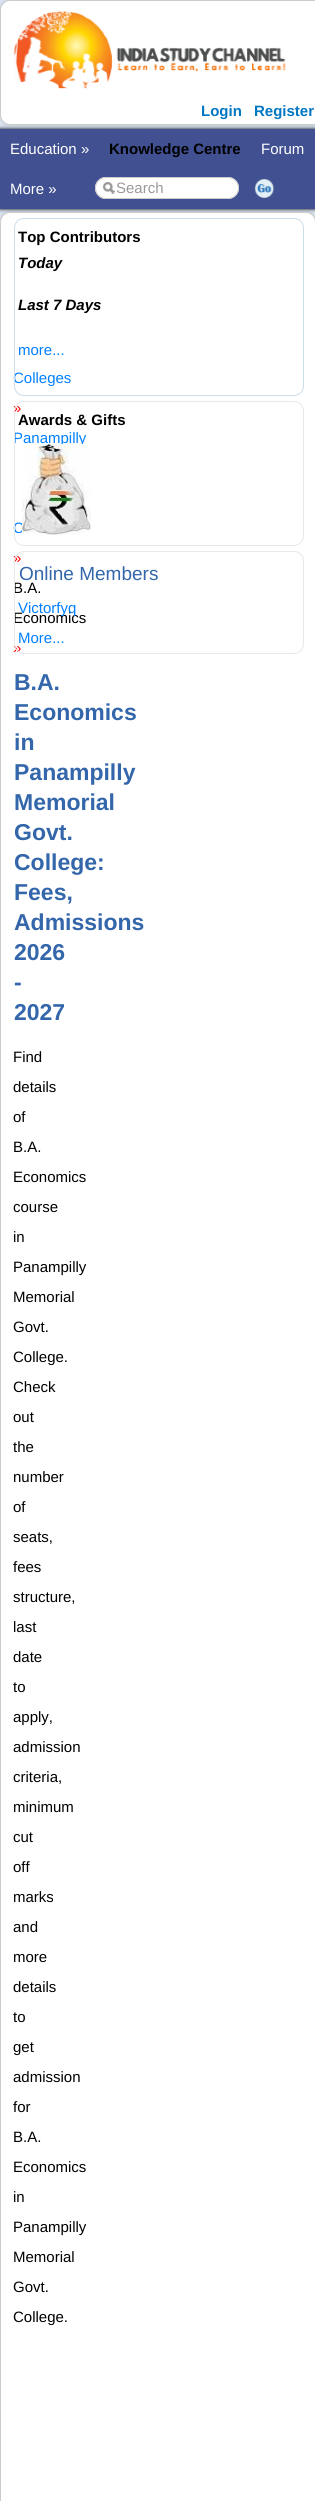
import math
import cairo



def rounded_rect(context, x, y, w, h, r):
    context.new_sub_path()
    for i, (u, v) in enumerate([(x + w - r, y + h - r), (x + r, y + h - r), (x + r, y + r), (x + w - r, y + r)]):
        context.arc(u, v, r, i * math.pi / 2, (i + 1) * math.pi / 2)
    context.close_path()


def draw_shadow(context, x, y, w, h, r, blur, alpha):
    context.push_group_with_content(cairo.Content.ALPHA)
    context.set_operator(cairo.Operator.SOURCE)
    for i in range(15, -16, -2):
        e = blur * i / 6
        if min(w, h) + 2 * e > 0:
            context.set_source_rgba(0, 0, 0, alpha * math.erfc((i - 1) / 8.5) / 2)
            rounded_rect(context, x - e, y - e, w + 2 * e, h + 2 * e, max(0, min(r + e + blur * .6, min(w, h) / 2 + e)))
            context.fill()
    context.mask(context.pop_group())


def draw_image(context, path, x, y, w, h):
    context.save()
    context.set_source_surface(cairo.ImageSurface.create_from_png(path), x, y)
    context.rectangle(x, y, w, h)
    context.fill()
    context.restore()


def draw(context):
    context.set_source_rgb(220 / 255, 230 / 255, 244 / 255)
    context.paint()
    context.set_source_rgb(0, 0, 0)
    draw_shadow(context, 0, 129, 315, 80, 0, 2, 1)
    context.set_source_rgb(64 / 255, 80 / 255, 144 / 255)
    context.rectangle(0, 129, 315, 80)
    context.fill()
    context.set_source_rgb(50 / 255, 50 / 255, 50 / 255)
    draw_shadow(context, 0, 0, 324, 125, 10, 2, 0.18)
    context.set_source_rgb(1, 1, 1)
    rounded_rect(context, 0.5, 0.5, 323, 124, 9.5)
    context.fill_preserve()
    context.set_source_rgb(204 / 255, 204 / 255, 204 / 255)
    context.set_line_width(1)
    context.stroke()
    draw_image(context, "images/1.png", 13, 11, 273, 78)
    context.set_source_rgb(1, 1, 1)
    rounded_rect(context, 95, 177, 144, 22, 11)
    context.fill()
    draw_image(context, "images/2.png", 103, 182, 12, 12)
    rounded_rect(context, 95.5, 177.5, 143, 21, 10.5)
    context.set_source_rgb(204 / 255, 204 / 255, 204 / 255)
    context.stroke()
    draw_image(context, "images/3.png", 254, 179, 21, 19)
    context.set_source_rgb(50 / 255, 50 / 255, 50 / 255)
    draw_shadow(context, 0, 212, 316, 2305, 10, 2, 0.18)
    context.set_source_rgb(1, 1, 1)
    rounded_rect(context, 0.5, 212.5, 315, 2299, 9.5)
    context.fill_preserve()
    context.set_source_rgb(204 / 255, 204 / 255, 204 / 255)
    context.stroke()
    context.select_font_face("Liberation Sans", cairo.FontSlant.NORMAL, cairo.FontWeight.BOLD)
    context.set_font_size(15)
    context.set_source_rgb(0, 119 / 255, 194 / 255)
    context.move_to(201, 116)
    context.show_text("Login")
    context.move_to(254, 116)
    context.show_text("Register")
    context.select_font_face("Liberation Sans")
    context.set_source_rgb(1, 1, 1)
    context.move_to(10, 154)
    context.show_text("Education »")
    context.select_font_face("Liberation Sans", cairo.FontSlant.NORMAL, cairo.FontWeight.BOLD)
    context.set_source_rgb(0, 0, 0)
    context.move_to(109, 154)
    context.show_text("Knowledge Centre")
    context.select_font_face("Liberation Sans")
    context.set_source_rgb(1, 1, 1)
    context.move_to(261, 154)
    context.show_text("Forum")
    context.move_to(10, 194)
    context.show_text("More »")
    context.set_source_rgb(153 / 255, 153 / 255, 153 / 255)
    context.move_to(116, 193)
    context.show_text("Search")
    context.set_source_rgb(0, 128 / 255, 1)
    context.move_to(13, 383)
    context.show_text("Colleges")
    rounded_rect(context, 14.5, 218.5, 289, 177, 9.5)
    context.set_source_rgb(202 / 255, 221 / 255, 234 / 255)
    context.stroke()
    context.set_source_rgb(0, 128 / 255, 1)
    context.move_to(18, 355)
    context.show_text("more...")
    context.select_font_face("Liberation Sans", cairo.FontSlant.ITALIC, cairo.FontWeight.BOLD)
    context.set_source_rgb(0, 0, 0)
    context.move_to(18, 310)
    context.show_text("Last 7 Days")
    context.move_to(18, 268)
    context.show_text("Today")
    context.select_font_face("Liberation Sans", cairo.FontSlant.NORMAL, cairo.FontWeight.BOLD)
    context.move_to(18, 242)
    context.show_text("Top Contributors")
    context.select_font_face("Liberation Sans")
    context.set_source_rgb(1, 0, 0)
    context.move_to(13, 413)
    context.show_text("»")
    context.set_source_rgb(0, 128 / 255, 1)
    context.move_to(13, 443)
    context.show_text("Panampilly")
    context.move_to(13, 533)
    context.show_text("C")
    rounded_rect(context, 14.5, 401.5, 289, 144, 9.5)
    context.set_source_rgb(232 / 255, 232 / 255, 232 / 255)
    context.stroke()
    draw_image(context, "images/4.png", 22, 444, 69, 91)
    context.select_font_face("Liberation Sans", cairo.FontSlant.NORMAL, cairo.FontWeight.BOLD)
    context.set_source_rgb(0, 0, 0)
    context.move_to(18, 425)
    context.show_text("Awards & Gifts")
    context.select_font_face("Liberation Sans")
    context.set_source_rgb(1, 0, 0)
    context.move_to(13, 563)
    context.show_text("»")
    context.set_source_rgb(0, 0, 0)
    context.move_to(13, 593)
    context.show_text("B.A.")
    context.move_to(13, 623)
    context.show_text("Economics")
    context.set_source_rgb(1, 0, 0)
    context.move_to(13, 653)
    context.show_text("»")
    rounded_rect(context, 14.5, 551.5, 289, 102, 9.5)
    context.set_source_rgb(232 / 255, 232 / 255, 232 / 255)
    context.stroke()
    context.set_source_rgb(0, 128 / 255, 1)
    context.move_to(18, 643)
    context.show_text("More...")
    context.move_to(18, 613)
    context.show_text("Victorfyq")
    context.set_font_size(19)
    context.set_source_rgb(51 / 255, 102 / 255, 170 / 255)
    context.move_to(19, 580)
    context.show_text("Online Members")
    context.select_font_face("Liberation Sans", cairo.FontSlant.NORMAL, cairo.FontWeight.BOLD)
    context.set_font_size(23)
    context.move_to(14, 690)
    context.show_text("B.A.")
    context.move_to(14, 720)
    context.show_text("Economics")
    context.move_to(14, 750)
    context.show_text("in")
    context.move_to(14, 780)
    context.show_text("Panampilly")
    context.move_to(14, 810)
    context.show_text("Memorial")
    context.move_to(14, 840)
    context.show_text("Govt.")
    context.move_to(14, 870)
    context.show_text("College:")
    context.move_to(14, 900)
    context.show_text("Fees,")
    context.move_to(14, 930)
    context.show_text("Admissions")
    context.move_to(14, 960)
    context.show_text("2026")
    context.move_to(14, 990)
    context.show_text("-")
    context.move_to(14, 1020)
    context.show_text("2027")
    context.select_font_face("Liberation Sans")
    context.set_font_size(15)
    context.set_source_rgb(0, 0, 0)
    context.move_to(13, 1062)
    context.show_text("Find")
    context.move_to(13, 1092)
    context.show_text("details")
    context.move_to(13, 1122)
    context.show_text("of")
    context.move_to(13, 1152)
    context.show_text("B.A.")
    context.move_to(13, 1182)
    context.show_text("Economics")
    context.move_to(13, 1212)
    context.show_text("course")
    context.move_to(13, 1242)
    context.show_text("in")
    context.move_to(13, 1272)
    context.show_text("Panampilly")
    context.move_to(13, 1302)
    context.show_text("Memorial")
    context.move_to(13, 1332)
    context.show_text("Govt.")
    context.move_to(13, 1362)
    context.show_text("College.")
    context.move_to(13, 1392)
    context.show_text("Check")
    context.move_to(13, 1422)
    context.show_text("out")
    context.move_to(13, 1452)
    context.show_text("the")
    context.move_to(13, 1482)
    context.show_text("number")
    context.move_to(13, 1512)
    context.show_text("of")
    context.move_to(13, 1542)
    context.show_text("seats,")
    context.move_to(13, 1572)
    context.show_text("fees")
    context.move_to(13, 1602)
    context.show_text("structure,")
    context.move_to(13, 1632)
    context.show_text("last")
    context.move_to(13, 1662)
    context.show_text("date")
    context.move_to(13, 1692)
    context.show_text("to")
    context.move_to(13, 1722)
    context.show_text("apply,")
    context.move_to(13, 1752)
    context.show_text("admission")
    context.move_to(13, 1782)
    context.show_text("criteria,")
    context.move_to(13, 1812)
    context.show_text("minimum")
    context.move_to(13, 1842)
    context.show_text("cut")
    context.move_to(13, 1872)
    context.show_text("off")
    context.move_to(13, 1902)
    context.show_text("marks")
    context.move_to(13, 1932)
    context.show_text("and")
    context.move_to(13, 1962)
    context.show_text("more")
    context.move_to(13, 1992)
    context.show_text("details")
    context.move_to(13, 2022)
    context.show_text("to")
    context.move_to(13, 2052)
    context.show_text("get")
    context.move_to(13, 2082)
    context.show_text("admission")
    context.move_to(13, 2112)
    context.show_text("for")
    context.move_to(13, 2142)
    context.show_text("B.A.")
    context.move_to(13, 2172)
    context.show_text("Economics")
    context.move_to(13, 2202)
    context.show_text("in")
    context.move_to(13, 2232)
    context.show_text("Panampilly")
    context.move_to(13, 2262)
    context.show_text("Memorial")
    context.move_to(13, 2292)
    context.show_text("Govt.")
    context.move_to(13, 2322)
    context.show_text("College.")


surface = cairo.ImageSurface(cairo.Format.RGB24, 315, 2501)
context = cairo.Context(surface)
options = cairo.FontOptions()
options.set_hint_metrics(cairo.HintMetrics.OFF)
options.set_hint_style(cairo.HintStyle.NONE)
context.set_font_options(options)
context.set_miter_limit(4)
draw(context)
surface.write_to_png("out.png")
